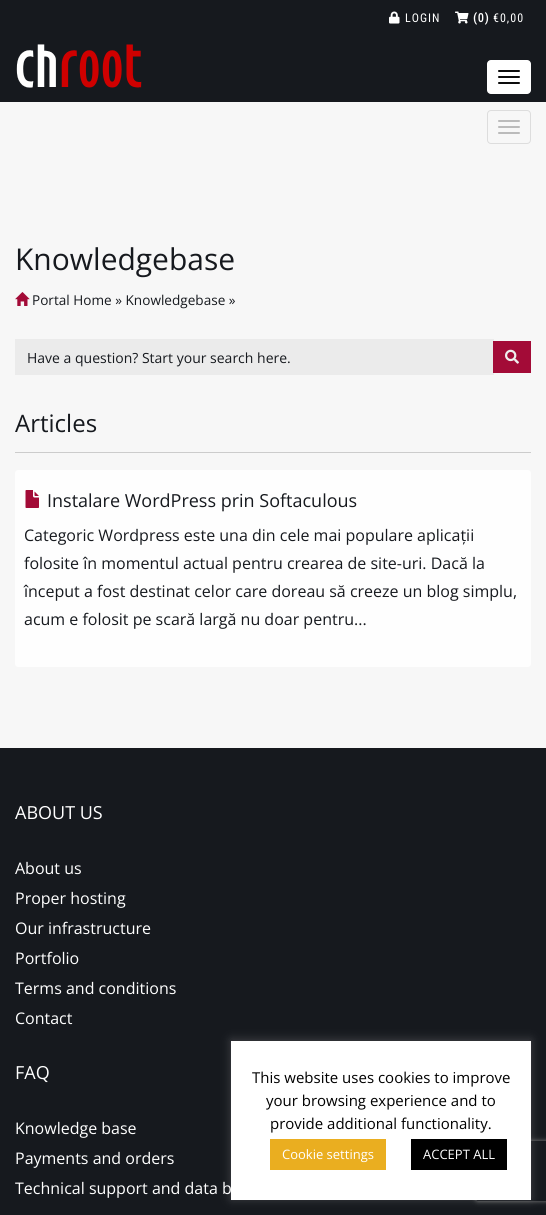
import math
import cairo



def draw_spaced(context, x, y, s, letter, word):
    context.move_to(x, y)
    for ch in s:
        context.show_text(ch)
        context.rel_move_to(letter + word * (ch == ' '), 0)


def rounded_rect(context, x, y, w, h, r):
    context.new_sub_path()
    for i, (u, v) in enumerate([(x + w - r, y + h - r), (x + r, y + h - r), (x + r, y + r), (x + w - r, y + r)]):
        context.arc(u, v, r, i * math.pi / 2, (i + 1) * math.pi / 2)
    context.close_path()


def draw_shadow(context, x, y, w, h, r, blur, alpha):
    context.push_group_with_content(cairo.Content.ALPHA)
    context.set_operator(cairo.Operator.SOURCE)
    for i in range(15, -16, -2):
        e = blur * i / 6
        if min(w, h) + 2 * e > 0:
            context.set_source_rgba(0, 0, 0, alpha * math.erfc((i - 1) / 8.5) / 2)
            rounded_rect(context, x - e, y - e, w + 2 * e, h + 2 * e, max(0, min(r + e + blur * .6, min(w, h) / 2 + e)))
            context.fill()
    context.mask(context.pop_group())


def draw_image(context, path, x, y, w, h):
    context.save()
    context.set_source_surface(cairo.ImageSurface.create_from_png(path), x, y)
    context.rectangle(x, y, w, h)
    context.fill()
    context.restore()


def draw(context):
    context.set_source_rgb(247 / 255, 247 / 255, 247 / 255)
    context.paint()
    context.set_source_rgb(22 / 255, 25 / 255, 30 / 255)
    context.rectangle(0, 0, 546, 102)
    context.fill()
    draw_image(context, "images/1.png", 389, 11, 11, 13)
    draw_image(context, "images/2.png", 455, 11, 14, 13)
    draw_image(context, "images/3.png", 16, 44, 126, 44)
    context.set_source_rgb(1, 1, 1)
    rounded_rect(context, 487, 60, 44, 34, 4)
    context.fill()
    context.set_source_rgb(12 / 255, 12 / 255, 12 / 255)
    rounded_rect(context, 498, 70, 22, 2, 1)
    context.fill()
    rounded_rect(context, 498, 76, 22, 2, 1)
    context.fill()
    rounded_rect(context, 498, 82, 22, 2, 1)
    context.fill()
    rounded_rect(context, 487.5, 110.5, 43, 33, 3.5)
    context.set_source_rgb(221 / 255, 221 / 255, 221 / 255)
    context.set_line_width(1)
    context.stroke()
    context.set_source_rgb(187 / 255, 187 / 255, 187 / 255)
    rounded_rect(context, 498, 120, 22, 2, 1)
    context.fill()
    rounded_rect(context, 498, 126, 22, 2, 1)
    context.fill()
    rounded_rect(context, 498, 132, 22, 2, 1)
    context.fill()
    draw_image(context, "images/4.png", 15, 292, 15, 14)
    context.set_source_rgb(235 / 255, 235 / 255, 235 / 255)
    context.rectangle(15, 339, 479, 36)
    context.fill()
    context.set_source_rgb(163 / 255, 11 / 255, 55 / 255)
    context.rectangle(493, 341, 38, 32)
    context.fill()
    draw_image(context, "images/5.png", 505, 349, 14, 15)
    context.set_source_rgb(204 / 255, 204 / 255, 204 / 255)
    context.rectangle(15, 452, 516, 1)
    context.fill()
    context.set_source_rgb(254 / 255, 254 / 255, 254 / 255)
    rounded_rect(context, 15, 470, 516, 197, 3)
    context.fill()
    draw_image(context, "images/6.png", 25, 490, 14, 18)
    context.set_source_rgb(22 / 255, 25 / 255, 30 / 255)
    context.rectangle(0, 748, 546, 467)
    context.fill()
    context.set_source_rgb(172 / 255, 171 / 255, 171 / 255)
    draw_shadow(context, 231, 1040, 300, 159, 0, 5, 0.3)
    context.save()
    context.set_fill_rule(cairo.FillRule.EVEN_ODD)
    context.new_path()
    context.move_to(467, 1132)
    context.line_to(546, 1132)
    context.line_to(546, 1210)
    context.line_to(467, 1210)
    context.close_path()
    context.move_to(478, 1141)
    context.line_to(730, 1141)
    context.curve_to(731, 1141, 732, 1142, 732, 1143)
    context.line_to(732, 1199)
    context.curve_to(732, 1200, 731, 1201, 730, 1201)
    context.line_to(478, 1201)
    context.curve_to(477, 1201, 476, 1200, 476, 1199)
    context.line_to(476, 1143)
    context.curve_to(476, 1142, 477, 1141, 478, 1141)
    context.close_path()
    context.clip()
    context.set_source_rgb(128 / 255, 128 / 255, 128 / 255)
    draw_shadow(context, 476, 1141, 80, 60, 2, 2.5, 1)
    context.restore()
    context.set_source_rgb(1, 1, 1)
    context.rectangle(231, 1041, 300, 159)
    context.fill()
    context.set_source_rgb(234 / 255, 174 / 255, 32 / 255)
    context.rectangle(270, 1139, 116, 31)
    context.fill()
    context.set_source_rgb(0, 0, 0)
    context.rectangle(411, 1139, 96, 31)
    context.fill()
    context.select_font_face("Roboto Condensed")
    context.set_font_size(12)
    context.set_source_rgb(1, 1, 1)
    draw_spaced(context, 405, 22, "LOGIN", 1, 0)
    context.select_font_face("Roboto Condensed", cairo.FontSlant.NORMAL, cairo.FontWeight.BOLD)
    draw_spaced(context, 473, 22, "(0)", 1, 0)
    context.select_font_face("Roboto Condensed")
    draw_spaced(context, 493, 22, "€0,00", 1, 0)
    context.select_font_face("Open Sans")
    context.set_font_size(30)
    context.set_source_rgb(22 / 255, 25 / 255, 30 / 255)
    context.move_to(15, 270)
    context.show_text("Knowledgebase")
    context.set_font_size(13.6)
    context.move_to(32, 305)
    context.show_text("Portal Home » Knowledgebase »")
    context.set_font_size(14)
    context.move_to(27, 363)
    context.show_text("Have a question? Start your search here.")
    context.set_font_size(24)
    context.move_to(15, 432)
    context.show_text("Articles")
    context.set_font_size(18)
    context.move_to(47, 507)
    context.show_text("Instalare WordPress prin Softaculous")
    context.set_font_size(16)
    context.move_to(24, 541)
    context.show_text("Categoric Wordpress este una din cele mai populare aplicații")
    context.move_to(24, 569)
    context.show_text("folosite în momentul actual pentru crearea de site-uri. Dacă la")
    context.move_to(24, 597)
    context.show_text("început a fost destinat celor care doreau să creeze un blog simplu,")
    context.move_to(24, 625)
    context.show_text("acum e folosit pe scară largă nu doar pentru...")
    context.set_font_size(18)
    context.set_source_rgb(1, 1, 1)
    context.move_to(15, 819)
    context.show_text("ABOUT US")
    context.set_font_size(16)
    context.move_to(15, 874)
    context.show_text("About us")
    context.move_to(15, 904)
    context.show_text("Proper hosting")
    context.move_to(15, 934)
    context.show_text("Our infrastructure")
    context.move_to(15, 964)
    context.show_text("Portfolio")
    context.move_to(15, 994)
    context.show_text("Terms and conditions")
    context.move_to(15, 1024)
    context.show_text("Contact")
    context.set_font_size(18)
    context.move_to(15, 1079)
    context.show_text("FAQ")
    context.set_font_size(16)
    context.move_to(15, 1134)
    context.show_text("Knowledge base")
    context.move_to(15, 1164)
    context.show_text("Payments and orders")
    context.move_to(15, 1194)
    context.show_text("Technical support and data b")
    context.set_font_size(15)
    context.set_source_rgb(0, 0, 0)
    context.move_to(252, 1083)
    context.show_text("This website uses cookies to improve")
    context.move_to(266, 1106)
    context.show_text("your browsing experience and to")
    context.move_to(270, 1129)
    context.show_text("provide additional functionality.")
    context.set_font_size(13)
    context.set_source_rgb(1, 1, 1)
    context.move_to(282, 1159)
    context.show_text("Cookie settings")
    context.move_to(423, 1159)
    context.show_text("ACCEPT ALL")


surface = cairo.ImageSurface(cairo.Format.RGB24, 546, 1215)
context = cairo.Context(surface)
options = cairo.FontOptions()
options.set_hint_metrics(cairo.HintMetrics.OFF)
options.set_hint_style(cairo.HintStyle.NONE)
context.set_font_options(options)
context.set_miter_limit(4)
draw(context)
surface.write_to_png("out.png")
